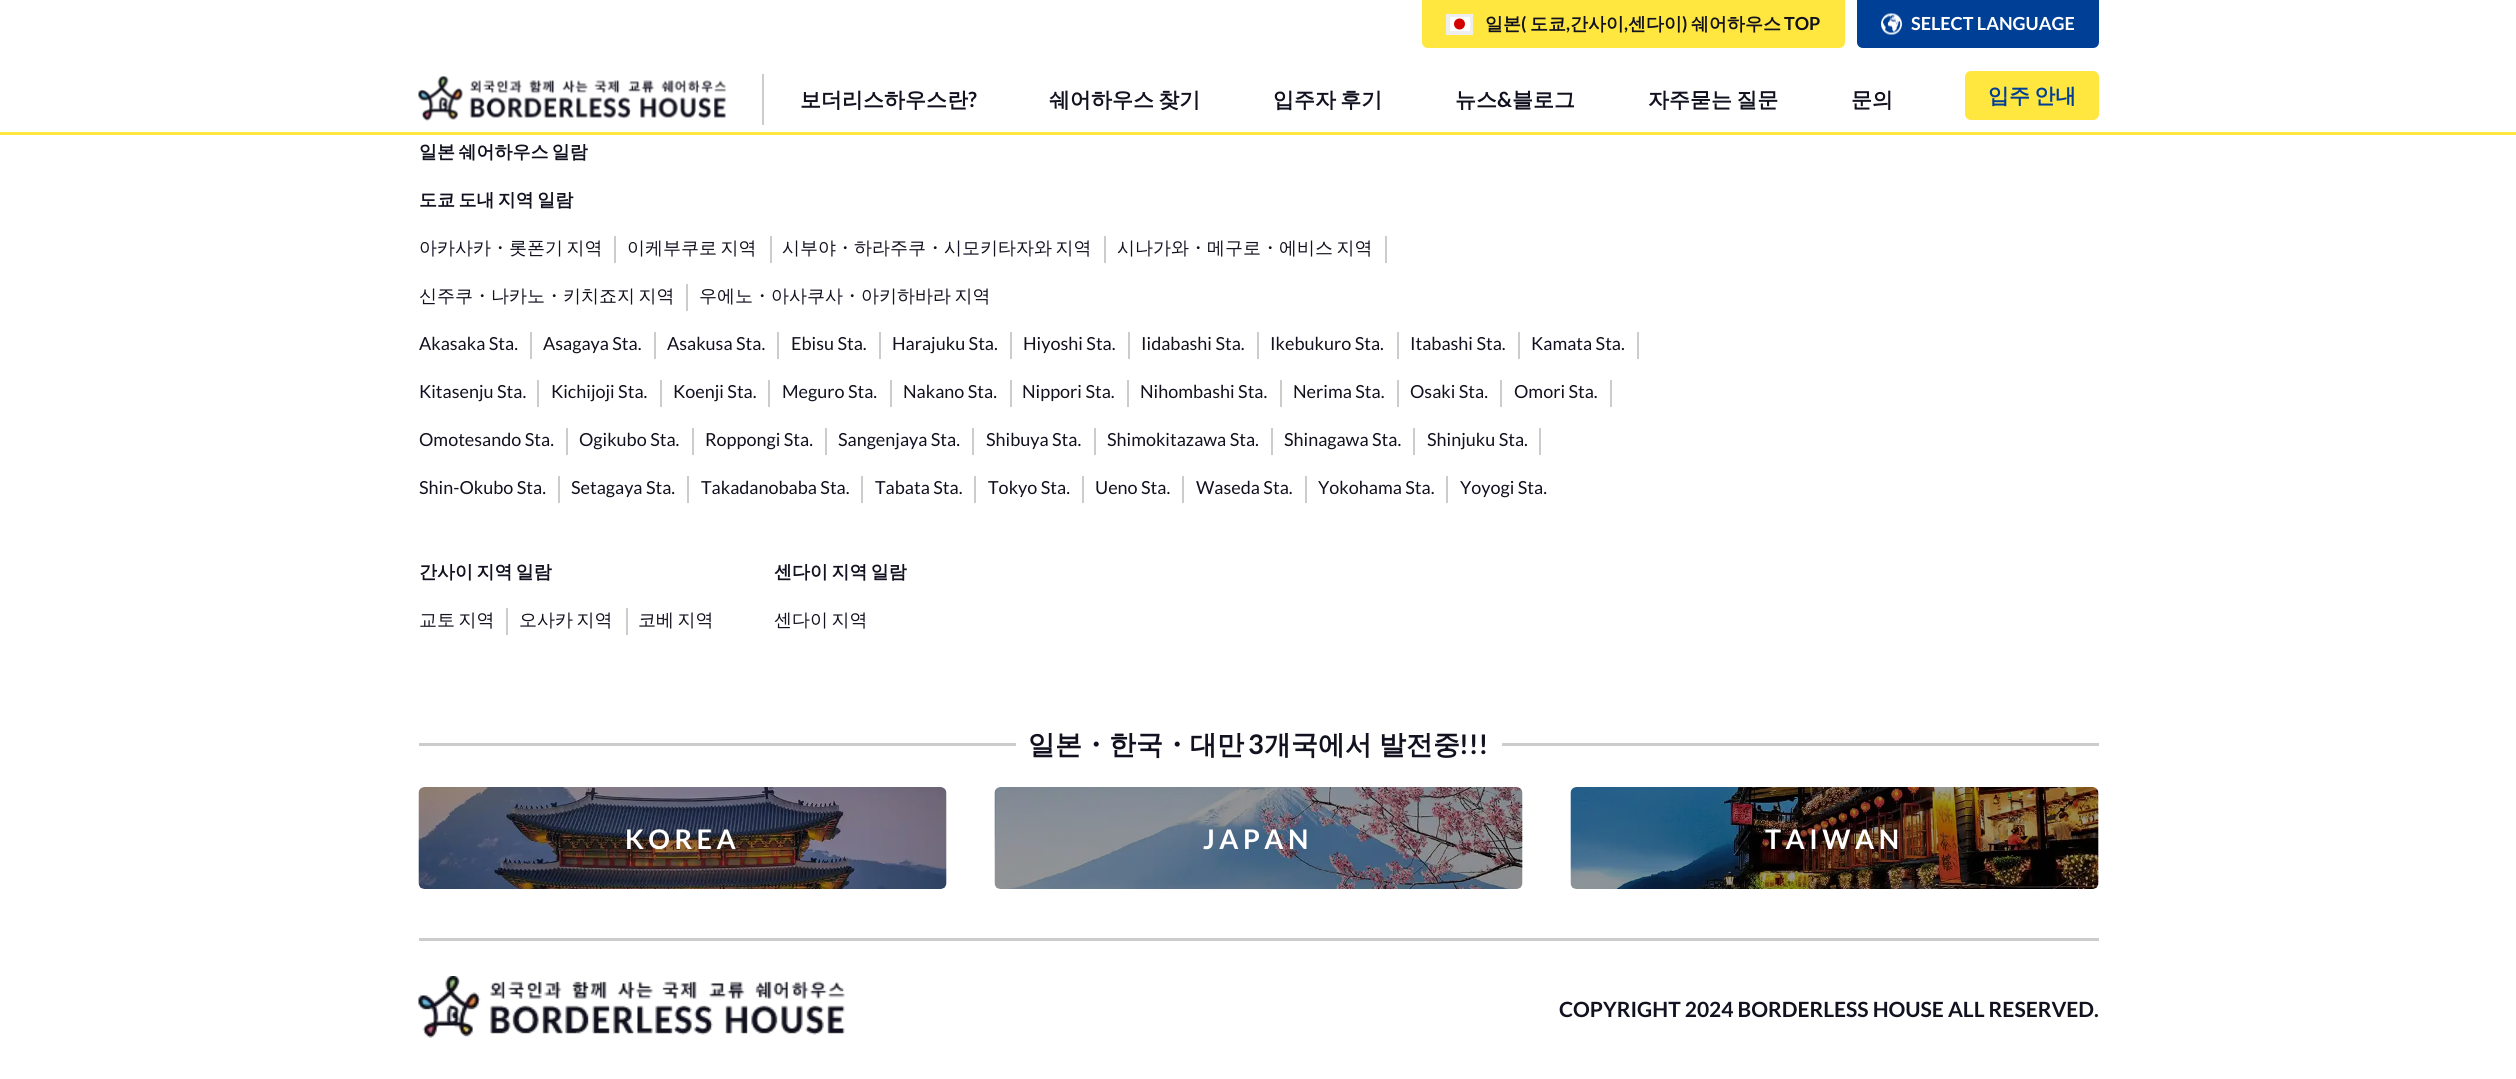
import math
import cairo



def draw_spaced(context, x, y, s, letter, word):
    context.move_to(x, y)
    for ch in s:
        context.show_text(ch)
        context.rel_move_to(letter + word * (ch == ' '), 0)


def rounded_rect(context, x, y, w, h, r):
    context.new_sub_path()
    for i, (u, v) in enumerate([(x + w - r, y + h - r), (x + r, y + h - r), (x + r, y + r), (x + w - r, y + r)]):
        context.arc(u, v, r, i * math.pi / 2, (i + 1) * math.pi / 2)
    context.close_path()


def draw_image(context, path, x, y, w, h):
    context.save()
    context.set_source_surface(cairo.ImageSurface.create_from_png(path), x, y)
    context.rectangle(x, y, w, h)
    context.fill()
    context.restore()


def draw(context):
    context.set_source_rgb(1, 1, 1)
    context.paint()
    context.set_source_rgb(1, 231 / 255, 63 / 255)
    context.rectangle(0, 132, 2516, 3)
    context.fill()
    context.new_path()
    context.move_to(1422, 0)
    context.line_to(1845, 0)
    context.line_to(1845, 42)
    context.curve_to(1845, 45.5, 1842.5, 48, 1839, 48)
    context.line_to(1428, 48)
    context.curve_to(1424.5, 48, 1422, 45.5, 1422, 42)
    context.close_path()
    context.fill()
    context.set_source_rgb(1, 1, 1)
    context.rectangle(1450, 17, 20, 14)
    context.fill()
    context.set_source_rgb(211 / 255, 0, 0)
    context.arc(1459.5, 24, 5.5, 0, 2 * math.pi)
    context.fill()
    context.rectangle(1449, 16, 22, 16)
    context.set_source_rgb(238 / 255, 238 / 255, 238 / 255)
    context.stroke()
    context.rectangle(1447, 15, 25, 19)
    context.stroke()
    context.set_source_rgb(0, 63 / 255, 150 / 255)
    context.new_path()
    context.move_to(1857, 0)
    context.line_to(2099, 0)
    context.line_to(2099, 42)
    context.curve_to(2099, 45.5, 2096.5, 48, 2093, 48)
    context.line_to(1863, 48)
    context.curve_to(1859.5, 48, 1857, 45.5, 1857, 42)
    context.close_path()
    context.fill()
    draw_image(context, "images/1.png", 1881, 13, 21, 22)
    context.set_source_rgb(204 / 255, 204 / 255, 204 / 255)
    context.rectangle(762, 74, 2, 51)
    context.fill()
    draw_image(context, "images/2.png", 418, 76, 308, 45)
    context.set_source_rgb(1, 231 / 255, 63 / 255)
    rounded_rect(context, 1965, 71, 134, 49, 6)
    context.fill()
    context.set_source_rgb(204 / 255, 204 / 255, 204 / 255)
    context.rectangle(614, 236, 2, 27)
    context.fill()
    context.rectangle(770, 236, 2, 27)
    context.fill()
    context.rectangle(1104, 236, 2, 27)
    context.fill()
    context.rectangle(1385, 236, 2, 27)
    context.fill()
    context.rectangle(686, 284, 2, 27)
    context.fill()
    context.rectangle(530, 332, 2, 27)
    context.fill()
    context.rectangle(654, 332, 2, 27)
    context.fill()
    context.rectangle(777, 332, 2, 27)
    context.fill()
    context.rectangle(879, 332, 2, 27)
    context.fill()
    context.rectangle(1010, 332, 2, 27)
    context.fill()
    context.rectangle(1128, 332, 2, 27)
    context.fill()
    context.rectangle(1257, 332, 2, 27)
    context.fill()
    context.rectangle(1397, 332, 2, 27)
    context.fill()
    context.rectangle(1518, 332, 2, 27)
    context.fill()
    context.rectangle(1637, 332, 2, 27)
    context.fill()
    context.rectangle(537, 380, 2, 27)
    context.fill()
    context.rectangle(660, 380, 2, 27)
    context.fill()
    context.rectangle(768, 380, 2, 27)
    context.fill()
    context.rectangle(890, 380, 2, 27)
    context.fill()
    context.rectangle(1010, 380, 2, 27)
    context.fill()
    context.rectangle(1127, 380, 2, 27)
    context.fill()
    context.rectangle(1280, 380, 2, 27)
    context.fill()
    context.rectangle(1397, 380, 2, 27)
    context.fill()
    context.rectangle(1500, 380, 2, 27)
    context.fill()
    context.rectangle(1610, 380, 2, 27)
    context.fill()
    context.rectangle(566, 428, 2, 27)
    context.fill()
    context.rectangle(692, 428, 2, 27)
    context.fill()
    context.rectangle(825, 428, 2, 27)
    context.fill()
    context.rectangle(972, 428, 2, 27)
    context.fill()
    context.rectangle(1094, 428, 2, 27)
    context.fill()
    context.rectangle(1271, 428, 2, 27)
    context.fill()
    context.rectangle(1413, 428, 2, 27)
    context.fill()
    context.rectangle(1539, 428, 2, 27)
    context.fill()
    context.rectangle(558, 476, 2, 27)
    context.fill()
    context.rectangle(687, 476, 2, 27)
    context.fill()
    context.rectangle(861, 476, 2, 27)
    context.fill()
    context.rectangle(974, 476, 2, 27)
    context.fill()
    context.rectangle(1082, 476, 2, 27)
    context.fill()
    context.rectangle(1182, 476, 2, 27)
    context.fill()
    context.rectangle(1305, 476, 2, 27)
    context.fill()
    context.rectangle(1446, 476, 2, 27)
    context.fill()
    context.rectangle(506, 608, 2, 27)
    context.fill()
    context.rectangle(626, 608, 2, 27)
    context.fill()
    context.rectangle(419, 743, 597, 3)
    context.fill()
    context.rectangle(1502, 743, 597, 3)
    context.fill()
    draw_image(context, "images/3.png", 418, 787, 529, 102)
    draw_image(context, "images/4.png", 994, 787, 529, 102)
    draw_image(context, "images/5.png", 1570, 787, 529, 102)
    context.rectangle(419, 938, 1680, 3)
    context.fill()
    draw_image(context, "images/6.png", 418, 976, 427, 62)
    context.select_font_face("WenQuanYi Zen Hei", cairo.FontSlant.NORMAL, cairo.FontWeight.BOLD)
    context.set_font_size(18)
    context.set_source_rgb(17 / 255, 17 / 255, 31 / 255)
    context.move_to(1485, 30)
    context.show_text("일본")
    context.select_font_face("Lato", cairo.FontSlant.NORMAL, cairo.FontWeight.BOLD)
    context.move_to(1521, 30)
    context.show_text("(")
    context.select_font_face("WenQuanYi Zen Hei", cairo.FontSlant.NORMAL, cairo.FontWeight.BOLD)
    context.move_to(1530, 30)
    context.show_text("도쿄")
    context.select_font_face("Lato", cairo.FontSlant.NORMAL, cairo.FontWeight.BOLD)
    context.move_to(1566, 30)
    context.show_text(",")
    context.select_font_face("WenQuanYi Zen Hei", cairo.FontSlant.NORMAL, cairo.FontWeight.BOLD)
    context.move_to(1570, 30)
    context.show_text("간사이")
    context.select_font_face("Lato", cairo.FontSlant.NORMAL, cairo.FontWeight.BOLD)
    context.move_to(1624, 30)
    context.show_text(",")
    context.select_font_face("WenQuanYi Zen Hei", cairo.FontSlant.NORMAL, cairo.FontWeight.BOLD)
    context.move_to(1628, 30)
    context.show_text("센다이")
    context.select_font_face("Lato", cairo.FontSlant.NORMAL, cairo.FontWeight.BOLD)
    context.move_to(1682, 30)
    context.show_text(")")
    context.select_font_face("WenQuanYi Zen Hei", cairo.FontSlant.NORMAL, cairo.FontWeight.BOLD)
    context.move_to(1691, 30)
    context.show_text("쉐어하우스")
    context.select_font_face("Lato", cairo.FontSlant.NORMAL, cairo.FontWeight.BOLD)
    context.move_to(1784, 30)
    context.show_text("TOP")
    context.set_source_rgb(1, 1, 1)
    context.move_to(1911, 30)
    context.show_text("SELECT LANGUAGE")
    context.select_font_face("WenQuanYi Zen Hei", cairo.FontSlant.NORMAL, cairo.FontWeight.BOLD)
    context.set_font_size(21)
    context.set_source_rgb(17 / 255, 17 / 255, 31 / 255)
    context.move_to(800, 107)
    context.show_text("보더리스하우스란")
    context.select_font_face("Lato", cairo.FontSlant.NORMAL, cairo.FontWeight.BOLD)
    context.move_to(968, 107)
    context.show_text("?")
    context.select_font_face("WenQuanYi Zen Hei", cairo.FontSlant.NORMAL, cairo.FontWeight.BOLD)
    draw_spaced(context, 1049, 107, "쉐어하우스 찾기", 0, -2)
    draw_spaced(context, 1273, 107, "입주자 후기", 0, -2)
    context.move_to(1455, 107)
    context.show_text("뉴스")
    context.select_font_face("Lato", cairo.FontSlant.NORMAL, cairo.FontWeight.BOLD)
    context.move_to(1497, 107)
    context.show_text("&")
    context.select_font_face("WenQuanYi Zen Hei", cairo.FontSlant.NORMAL, cairo.FontWeight.BOLD)
    context.move_to(1512, 107)
    context.show_text("블로그")
    draw_spaced(context, 1648, 107, "자주묻는 질문", 0, -2)
    context.move_to(1851, 107)
    context.show_text("문의")
    context.set_source_rgb(0, 63 / 255, 150 / 255)
    draw_spaced(context, 1988, 103, "입주 안내", 0, -2)
    context.set_font_size(18)
    context.set_source_rgb(17 / 255, 17 / 255, 31 / 255)
    draw_spaced(context, 419, 158, "일본 쉐어하우스 일람", 0, -2)
    draw_spaced(context, 419, 206, "도쿄 도내 지역 일람", 0, -2)
    context.select_font_face("WenQuanYi Zen Hei Medium")
    draw_spaced(context, 419, 254, "아카사카・롯폰기 지역", 0, -2)
    draw_spaced(context, 627, 254, "이케부쿠로 지역", 0, -2)
    draw_spaced(context, 782, 254, "시부야・하라주쿠・시모키타자와 지역", 0, -2)
    draw_spaced(context, 1117, 254, "시나가와・메구로・에비스 지역", 0, -2)
    draw_spaced(context, 419, 302, "신주쿠・나카노・키치죠지 지역", 0, -2)
    draw_spaced(context, 699, 302, "우에노・아사쿠사・아키하바라 지역", 0, -2)
    context.select_font_face("Lato")
    context.move_to(419, 350)
    context.show_text("Akasaka Sta.")
    context.move_to(543, 350)
    context.show_text("Asagaya Sta.")
    context.move_to(667, 350)
    context.show_text("Asakusa Sta.")
    context.move_to(791, 350)
    context.show_text("Ebisu Sta.")
    context.move_to(892, 350)
    context.show_text("Harajuku Sta.")
    context.move_to(1023, 350)
    context.show_text("Hiyoshi Sta.")
    context.move_to(1141, 350)
    context.show_text("Iidabashi Sta.")
    context.move_to(1270, 350)
    context.show_text("Ikebukuro Sta.")
    context.move_to(1410, 350)
    context.show_text("Itabashi Sta.")
    context.move_to(1531, 350)
    context.show_text("Kamata Sta.")
    context.move_to(419, 398)
    context.show_text("Kitasenju Sta.")
    context.move_to(551, 398)
    context.show_text("Kichijoji Sta.")
    context.move_to(673, 398)
    context.show_text("Koenji Sta.")
    context.move_to(782, 398)
    context.show_text("Meguro Sta.")
    context.move_to(903, 398)
    context.show_text("Nakano Sta.")
    context.move_to(1022, 398)
    context.show_text("Nippori Sta.")
    context.move_to(1140, 398)
    context.show_text("Nihombashi Sta.")
    context.move_to(1293, 398)
    context.show_text("Nerima Sta.")
    context.move_to(1410, 398)
    context.show_text("Osaki Sta.")
    context.move_to(1514, 398)
    context.show_text("Omori Sta.")
    context.move_to(419, 446)
    context.show_text("Omotesando Sta.")
    context.move_to(579, 446)
    context.show_text("Ogikubo Sta.")
    context.move_to(705, 446)
    context.show_text("Roppongi Sta.")
    context.move_to(838, 446)
    context.show_text("Sangenjaya Sta.")
    context.move_to(986, 446)
    context.show_text("Shibuya Sta.")
    context.move_to(1107, 446)
    context.show_text("Shimokitazawa Sta.")
    context.move_to(1284, 446)
    context.show_text("Shinagawa Sta.")
    context.move_to(1427, 446)
    context.show_text("Shinjuku Sta.")
    context.move_to(419, 494)
    context.show_text("Shin-Okubo Sta.")
    context.move_to(571, 494)
    context.show_text("Setagaya Sta.")
    context.move_to(701, 494)
    context.show_text("Takadanobaba Sta.")
    context.move_to(875, 494)
    context.show_text("Tabata Sta.")
    context.move_to(988, 494)
    context.show_text("Tokyo Sta.")
    context.move_to(1095, 494)
    context.show_text("Ueno Sta.")
    context.move_to(1196, 494)
    context.show_text("Waseda Sta.")
    context.move_to(1318, 494)
    context.show_text("Yokohama Sta.")
    context.move_to(1460, 494)
    context.show_text("Yoyogi Sta.")
    context.select_font_face("WenQuanYi Zen Hei", cairo.FontSlant.NORMAL, cairo.FontWeight.BOLD)
    draw_spaced(context, 419, 578, "간사이 지역 일람", 0, -2)
    context.select_font_face("WenQuanYi Zen Hei Medium")
    draw_spaced(context, 419, 626, "교토 지역", 0, -2)
    draw_spaced(context, 519, 626, "오사카 지역", 0, -2)
    draw_spaced(context, 638, 626, "코베 지역", 0, -2)
    context.select_font_face("WenQuanYi Zen Hei", cairo.FontSlant.NORMAL, cairo.FontWeight.BOLD)
    draw_spaced(context, 774, 578, "센다이 지역 일람", 0, -2)
    context.select_font_face("WenQuanYi Zen Hei Medium")
    draw_spaced(context, 774, 626, "센다이 지역", 0, -2)
    context.select_font_face("WenQuanYi Zen Hei", cairo.FontSlant.NORMAL, cairo.FontWeight.BOLD)
    context.set_font_size(27)
    context.move_to(1028, 754)
    context.show_text("일본・한국・대만")
    context.select_font_face("Lato", cairo.FontSlant.NORMAL, cairo.FontWeight.BOLD)
    context.move_to(1248, 754)
    context.show_text("3")
    context.select_font_face("WenQuanYi Zen Hei", cairo.FontSlant.NORMAL, cairo.FontWeight.BOLD)
    draw_spaced(context, 1264, 754, "개국에서 발전중", 0, -1)
    context.select_font_face("Lato", cairo.FontSlant.NORMAL, cairo.FontWeight.BOLD)
    context.move_to(1459, 754)
    context.show_text("!!!")
    context.set_source_rgb(1, 1, 1)
    draw_spaced(context, 625, 849, "KOREA", 4.5, 0)
    draw_spaced(context, 1203, 849, "JAPAN", 4.5, 0)
    draw_spaced(context, 1765, 849, "TAIWAN", 4.5, 0)
    context.set_font_size(21)
    context.set_source_rgb(17 / 255, 17 / 255, 31 / 255)
    context.move_to(1559, 1017)
    context.show_text("COPYRIGHT 2024 BORDERLESS HOUSE ALL RESERVED.")


surface = cairo.ImageSurface(cairo.Format.RGB24, 2516, 1079)
context = cairo.Context(surface)
options = cairo.FontOptions()
options.set_hint_metrics(cairo.HintMetrics.OFF)
options.set_hint_style(cairo.HintStyle.NONE)
context.set_font_options(options)
context.set_miter_limit(4)
draw(context)
surface.write_to_png("out.png")
